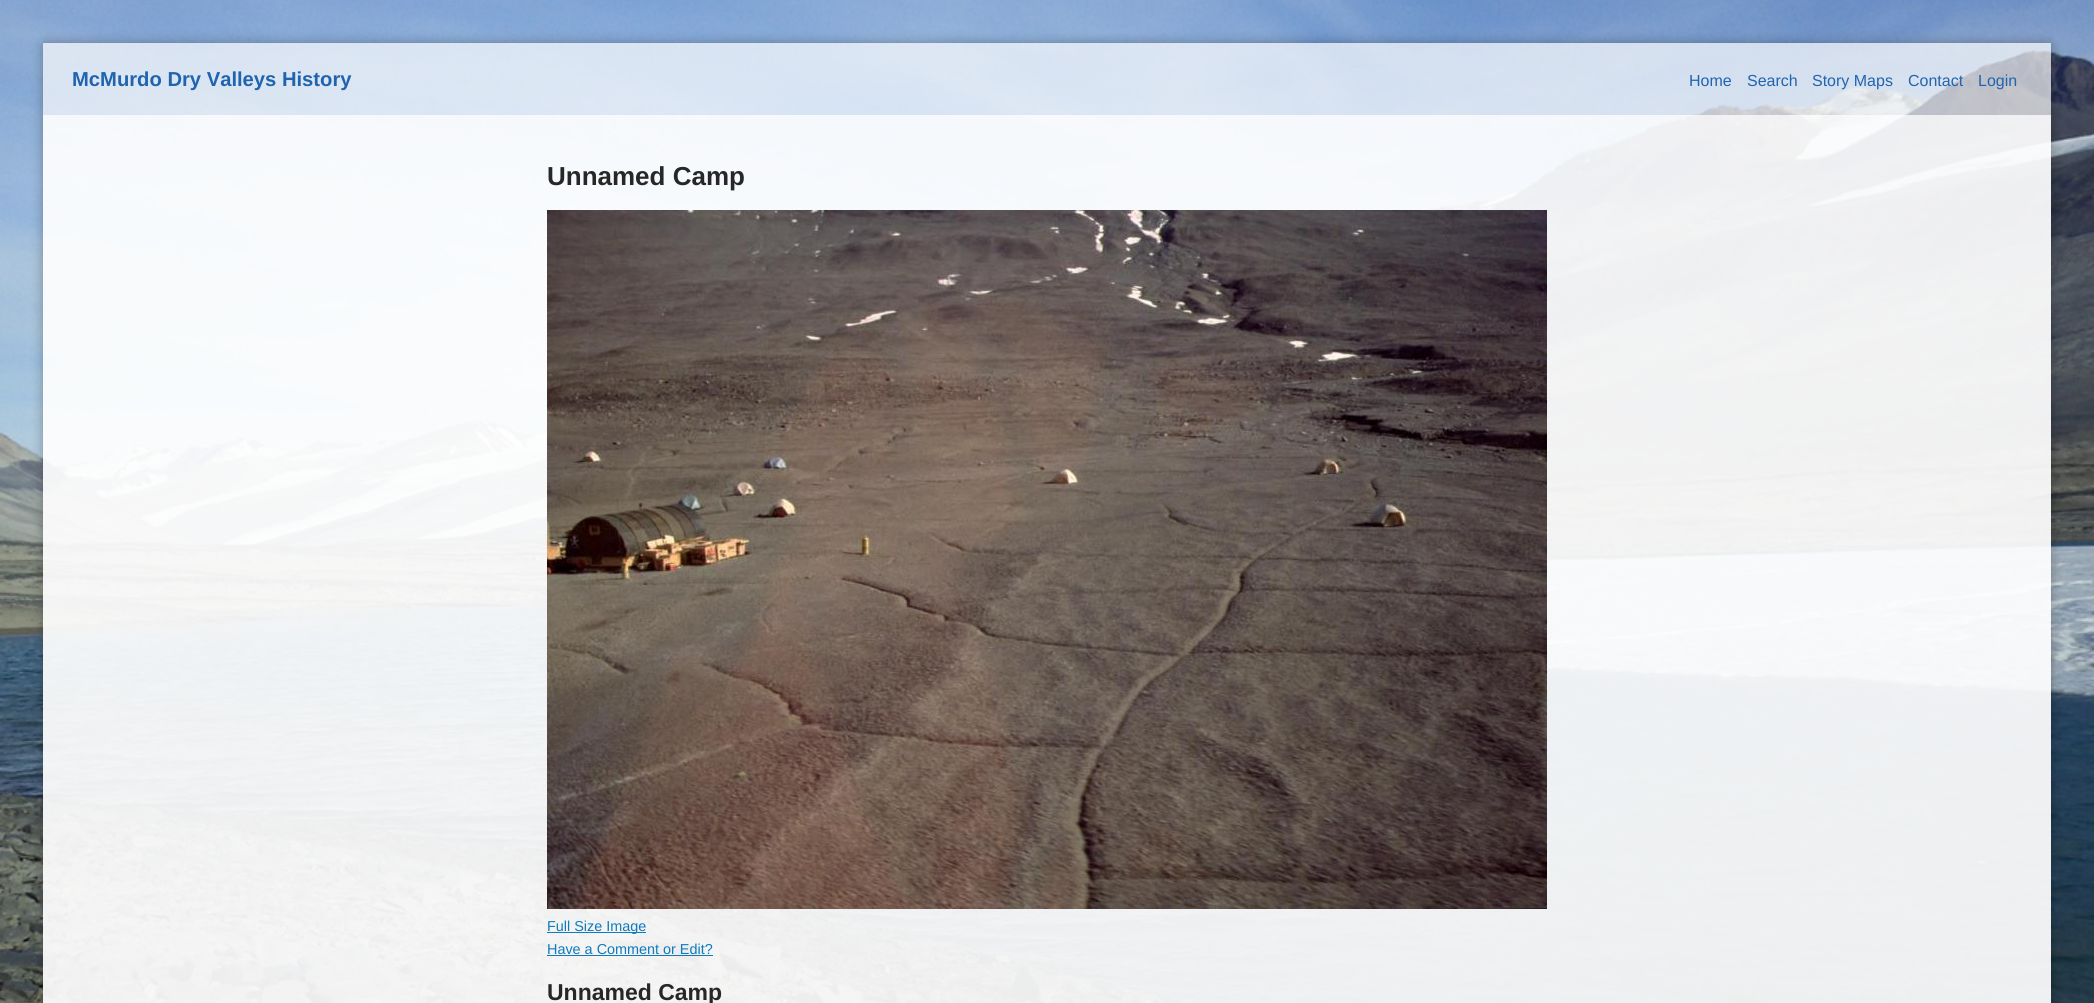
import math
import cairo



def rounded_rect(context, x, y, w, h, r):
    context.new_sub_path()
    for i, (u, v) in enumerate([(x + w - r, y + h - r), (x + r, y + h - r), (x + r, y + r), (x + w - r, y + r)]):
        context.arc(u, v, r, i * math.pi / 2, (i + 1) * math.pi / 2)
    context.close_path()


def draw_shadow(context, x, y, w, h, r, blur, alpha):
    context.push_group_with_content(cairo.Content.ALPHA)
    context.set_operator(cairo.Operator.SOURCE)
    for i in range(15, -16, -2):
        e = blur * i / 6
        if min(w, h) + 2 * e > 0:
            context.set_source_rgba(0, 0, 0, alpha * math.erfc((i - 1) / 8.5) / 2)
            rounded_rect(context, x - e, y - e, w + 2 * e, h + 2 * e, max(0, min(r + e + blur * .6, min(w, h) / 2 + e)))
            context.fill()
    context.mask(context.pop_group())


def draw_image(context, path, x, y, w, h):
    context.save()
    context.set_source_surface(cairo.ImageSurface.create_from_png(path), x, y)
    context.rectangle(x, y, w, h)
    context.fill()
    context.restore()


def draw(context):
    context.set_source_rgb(1, 1, 1)
    context.paint()
    draw_image(context, "images/1.png", 0, 0, 2094, 1003)
    context.save()
    context.set_fill_rule(cairo.FillRule.EVEN_ODD)
    context.new_path()
    context.move_to(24, 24)
    context.line_to(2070, 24)
    context.line_to(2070, 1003)
    context.line_to(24, 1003)
    context.close_path()
    context.move_to(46, 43)
    context.line_to(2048, 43)
    context.curve_to(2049.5, 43, 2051, 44.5, 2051, 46)
    context.line_to(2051, 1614)
    context.curve_to(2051, 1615.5, 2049.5, 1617, 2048, 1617)
    context.line_to(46, 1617)
    context.curve_to(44.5, 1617, 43, 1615.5, 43, 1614)
    context.line_to(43, 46)
    context.curve_to(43, 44.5, 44.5, 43, 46, 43)
    context.close_path()
    context.clip()
    context.set_source_rgb(0, 0, 0)
    draw_shadow(context, 43, 43, 2008, 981, 3, 6, 0.3)
    context.restore()
    context.set_source_rgba(1, 1, 1, 0.68)
    context.rectangle(43, 43, 2008, 72)
    context.fill()
    context.set_source_rgba(1, 1, 1, 0.92)
    context.rectangle(43, 115, 2008, 888)
    context.fill()
    draw_image(context, "images/2.png", 547, 210, 1000, 699)
    context.set_source_rgb(15 / 255, 122 / 255, 189 / 255)
    context.rectangle(547, 932, 99, 1)
    context.fill()
    context.rectangle(547, 955, 166, 1)
    context.fill()
    context.select_font_face("Liberation Sans", cairo.FontSlant.NORMAL, cairo.FontWeight.BOLD)
    context.set_font_size(20.2)
    context.set_source_rgb(32 / 255, 100 / 255, 174 / 255)
    context.move_to(72, 86)
    context.show_text("McMurdo Dry Valleys History")
    context.select_font_face("Liberation Sans")
    context.set_font_size(16)
    context.move_to(1689, 86)
    context.show_text("Home")
    context.move_to(1747, 86)
    context.show_text("Search")
    context.move_to(1812, 86)
    context.show_text("Story Maps")
    context.move_to(1908, 86)
    context.show_text("Contact")
    context.move_to(1978, 86)
    context.show_text("Login")
    context.select_font_face("Liberation Sans", cairo.FontSlant.NORMAL, cairo.FontWeight.BOLD)
    context.set_font_size(26)
    context.set_source_rgb(39 / 255, 39 / 255, 39 / 255)
    context.move_to(547, 185)
    context.show_text("Unnamed Camp")
    context.select_font_face("Liberation Sans")
    context.set_font_size(14.4)
    context.set_source_rgb(15 / 255, 122 / 255, 189 / 255)
    context.move_to(547, 931)
    context.show_text("Full Size Image")
    context.move_to(547, 954)
    context.show_text("Have a Comment or Edit?")
    context.select_font_face("Liberation Sans", cairo.FontSlant.NORMAL, cairo.FontWeight.BOLD)
    context.set_font_size(23)
    context.set_source_rgb(39 / 255, 39 / 255, 39 / 255)
    context.move_to(547, 1000)
    context.show_text("Unnamed Camp")


surface = cairo.ImageSurface(cairo.Format.RGB24, 2094, 1003)
context = cairo.Context(surface)
options = cairo.FontOptions()
options.set_hint_metrics(cairo.HintMetrics.OFF)
options.set_hint_style(cairo.HintStyle.NONE)
context.set_font_options(options)
context.set_miter_limit(4)
draw(context)
surface.write_to_png("out.png")
